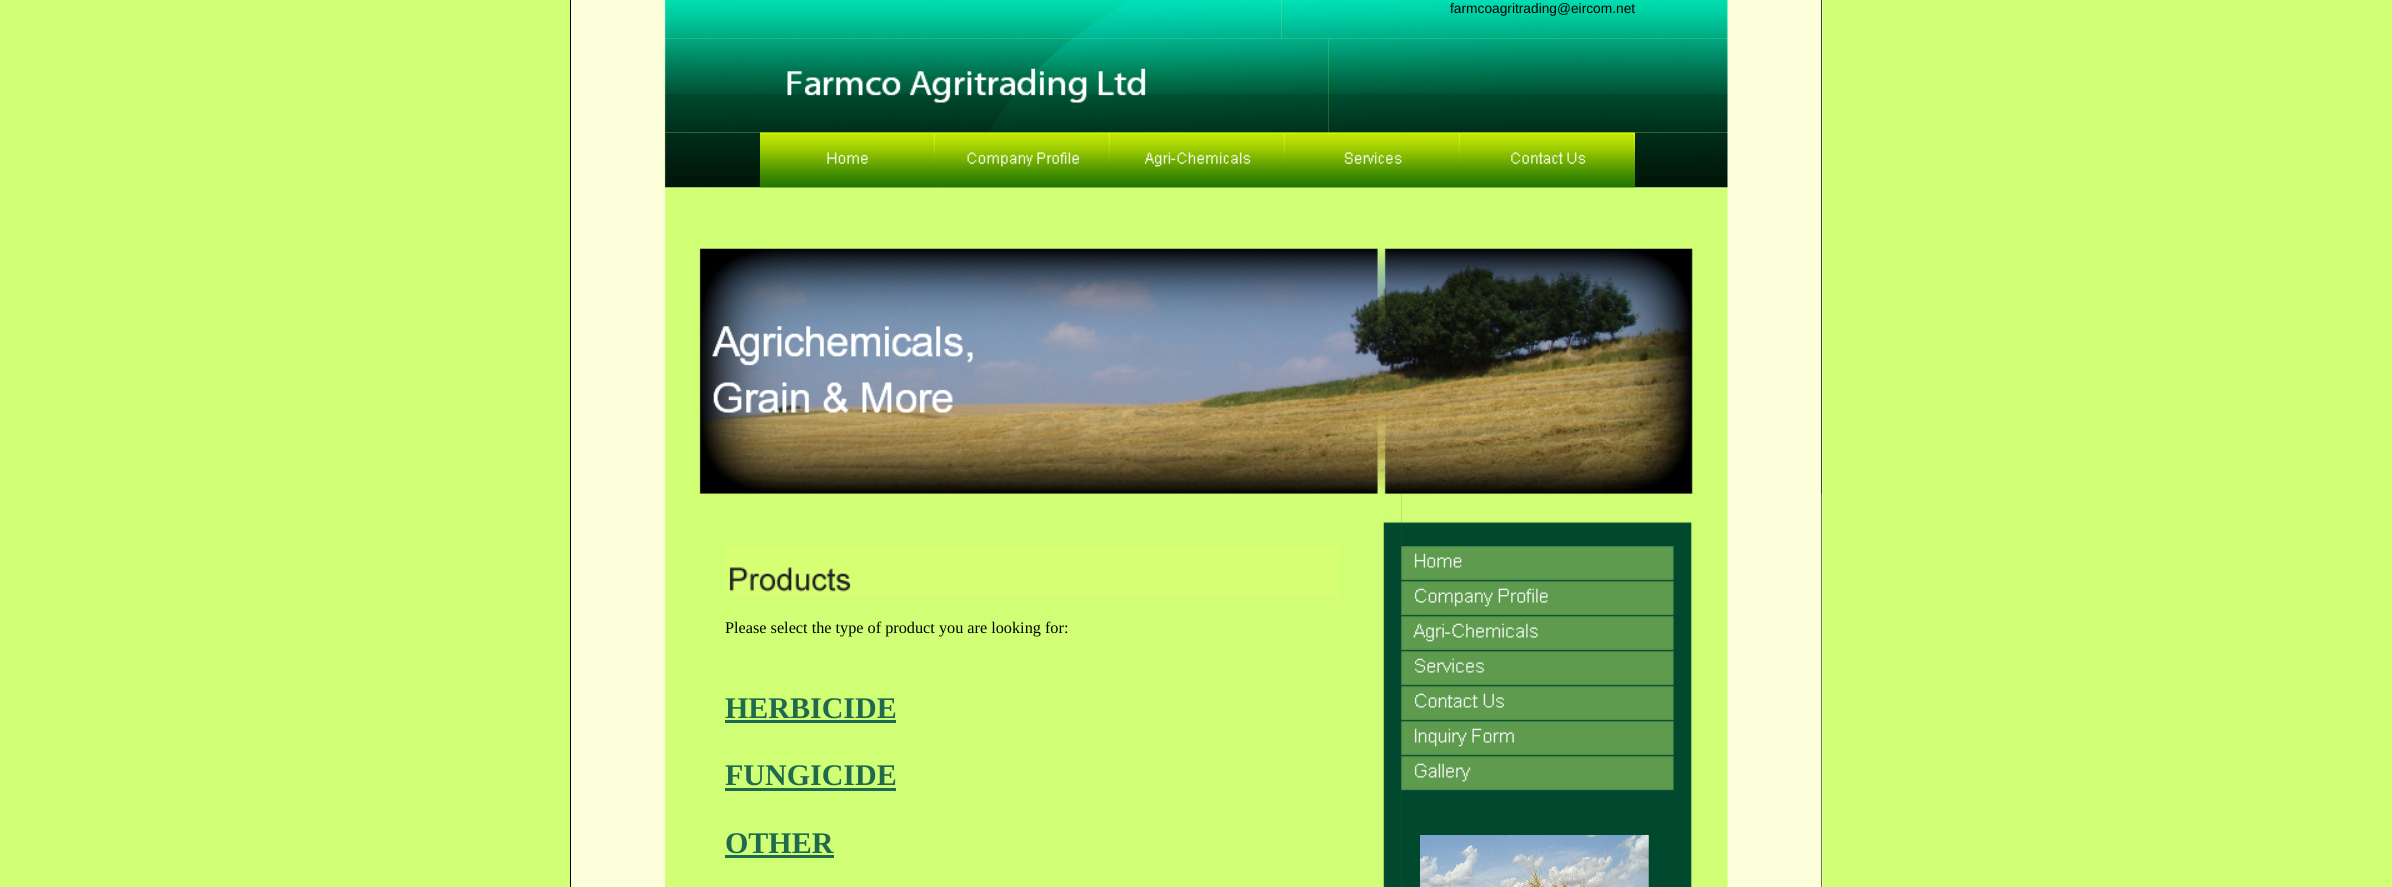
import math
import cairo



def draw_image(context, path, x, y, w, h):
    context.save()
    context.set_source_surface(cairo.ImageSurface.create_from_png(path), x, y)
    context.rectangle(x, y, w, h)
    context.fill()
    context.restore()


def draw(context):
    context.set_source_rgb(208 / 255, 1, 117 / 255)
    context.paint()
    draw_image(context, "images/1.png", 571, 0, 1252, 887)
    context.set_source_rgb(0, 0, 0)
    context.rectangle(1821, 0, 1, 887)
    context.fill()
    context.rectangle(570, 0, 1, 887)
    context.fill()
    draw_image(context, "images/3.png", 1281, 0, 354, 39)
    draw_image(context, "images/2.png", 664, 0, 618, 39)
    draw_image(context, "images/4.png", 1635, 0, 187, 39)
    draw_image(context, "images/5.png", 664, 38, 96, 95)
    draw_image(context, "images/9.png", 760, 132, 875, 56)
    draw_image(context, "images/10.png", 760, 132, 175, 56)
    draw_image(context, "images/12.png", 935, 132, 175, 56)
    draw_image(context, "images/14.png", 1110, 132, 175, 56)
    draw_image(context, "images/16.png", 1285, 132, 175, 56)
    draw_image(context, "images/6.png", 760, 38, 569, 95)
    draw_image(context, "images/18.png", 1460, 132, 175, 56)
    draw_image(context, "images/7.png", 1328, 38, 494, 95)
    draw_image(context, "images/8.png", 664, 132, 96, 56)
    draw_image(context, "images/11.png", 760, 132, 175, 56)
    draw_image(context, "images/13.png", 935, 132, 175, 56)
    draw_image(context, "images/15.png", 1110, 132, 175, 56)
    draw_image(context, "images/17.png", 1285, 132, 175, 56)
    draw_image(context, "images/19.png", 1460, 132, 175, 56)
    draw_image(context, "images/20.png", 1635, 132, 187, 56)
    draw_image(context, "images/21.png", 664, 187, 1158, 61)
    draw_image(context, "images/24.png", 1383, 493, 19, 394)
    draw_image(context, "images/27.png", 1401, 493, 421, 394)
    draw_image(context, "images/22.png", 699, 248, 994, 246)
    draw_image(context, "images/23.png", 1692, 247, 130, 247)
    draw_image(context, "images/25.png", 700, 493, 702, 53)
    draw_image(context, "images/26.png", 725, 546, 615, 51)
    context.set_source_rgb(31 / 255, 106 / 255, 79 / 255)
    context.rectangle(725, 720, 171, 3)
    context.fill()
    context.rectangle(725, 788, 171, 3)
    context.fill()
    context.rectangle(725, 855, 109, 3)
    context.fill()
    draw_image(context, "images/29.png", 1401, 546, 1, 341)
    draw_image(context, "images/28.png", 1401, 493, 421, 54)
    draw_image(context, "images/30.png", 1401, 546, 273, 35)
    draw_image(context, "images/31.png", 1401, 581, 273, 35)
    draw_image(context, "images/32.png", 1401, 616, 273, 35)
    draw_image(context, "images/33.png", 1401, 651, 273, 35)
    draw_image(context, "images/34.png", 1401, 686, 273, 35)
    draw_image(context, "images/35.png", 1401, 721, 273, 35)
    draw_image(context, "images/36.png", 1401, 756, 273, 35)
    draw_image(context, "images/37.png", 1420, 835, 229, 52)
    draw_image(context, "images/38.png", 1673, 546, 149, 341)
    context.select_font_face("Liberation Sans")
    context.set_font_size(13.75)
    context.set_source_rgb(0, 0, 0)
    context.move_to(1450, 13)
    context.show_text("farmcoagritrading@eircom.net")
    context.select_font_face("Liberation Serif")
    context.set_font_size(16.25)
    context.move_to(725, 633)
    context.show_text("Please select the type of product you are looking for:")
    context.select_font_face("Liberation Serif", cairo.FontSlant.NORMAL, cairo.FontWeight.BOLD)
    context.set_font_size(30)
    context.set_source_rgb(31 / 255, 106 / 255, 79 / 255)
    context.move_to(725, 718)
    context.show_text("HERBICIDE")
    context.move_to(725, 785)
    context.show_text("FUNGICIDE")
    context.move_to(725, 853)
    context.show_text("OTHER")


surface = cairo.ImageSurface(cairo.Format.RGB24, 2392, 887)
context = cairo.Context(surface)
options = cairo.FontOptions()
options.set_hint_metrics(cairo.HintMetrics.OFF)
options.set_hint_style(cairo.HintStyle.NONE)
context.set_font_options(options)
context.set_miter_limit(4)
draw(context)
surface.write_to_png("out.png")
